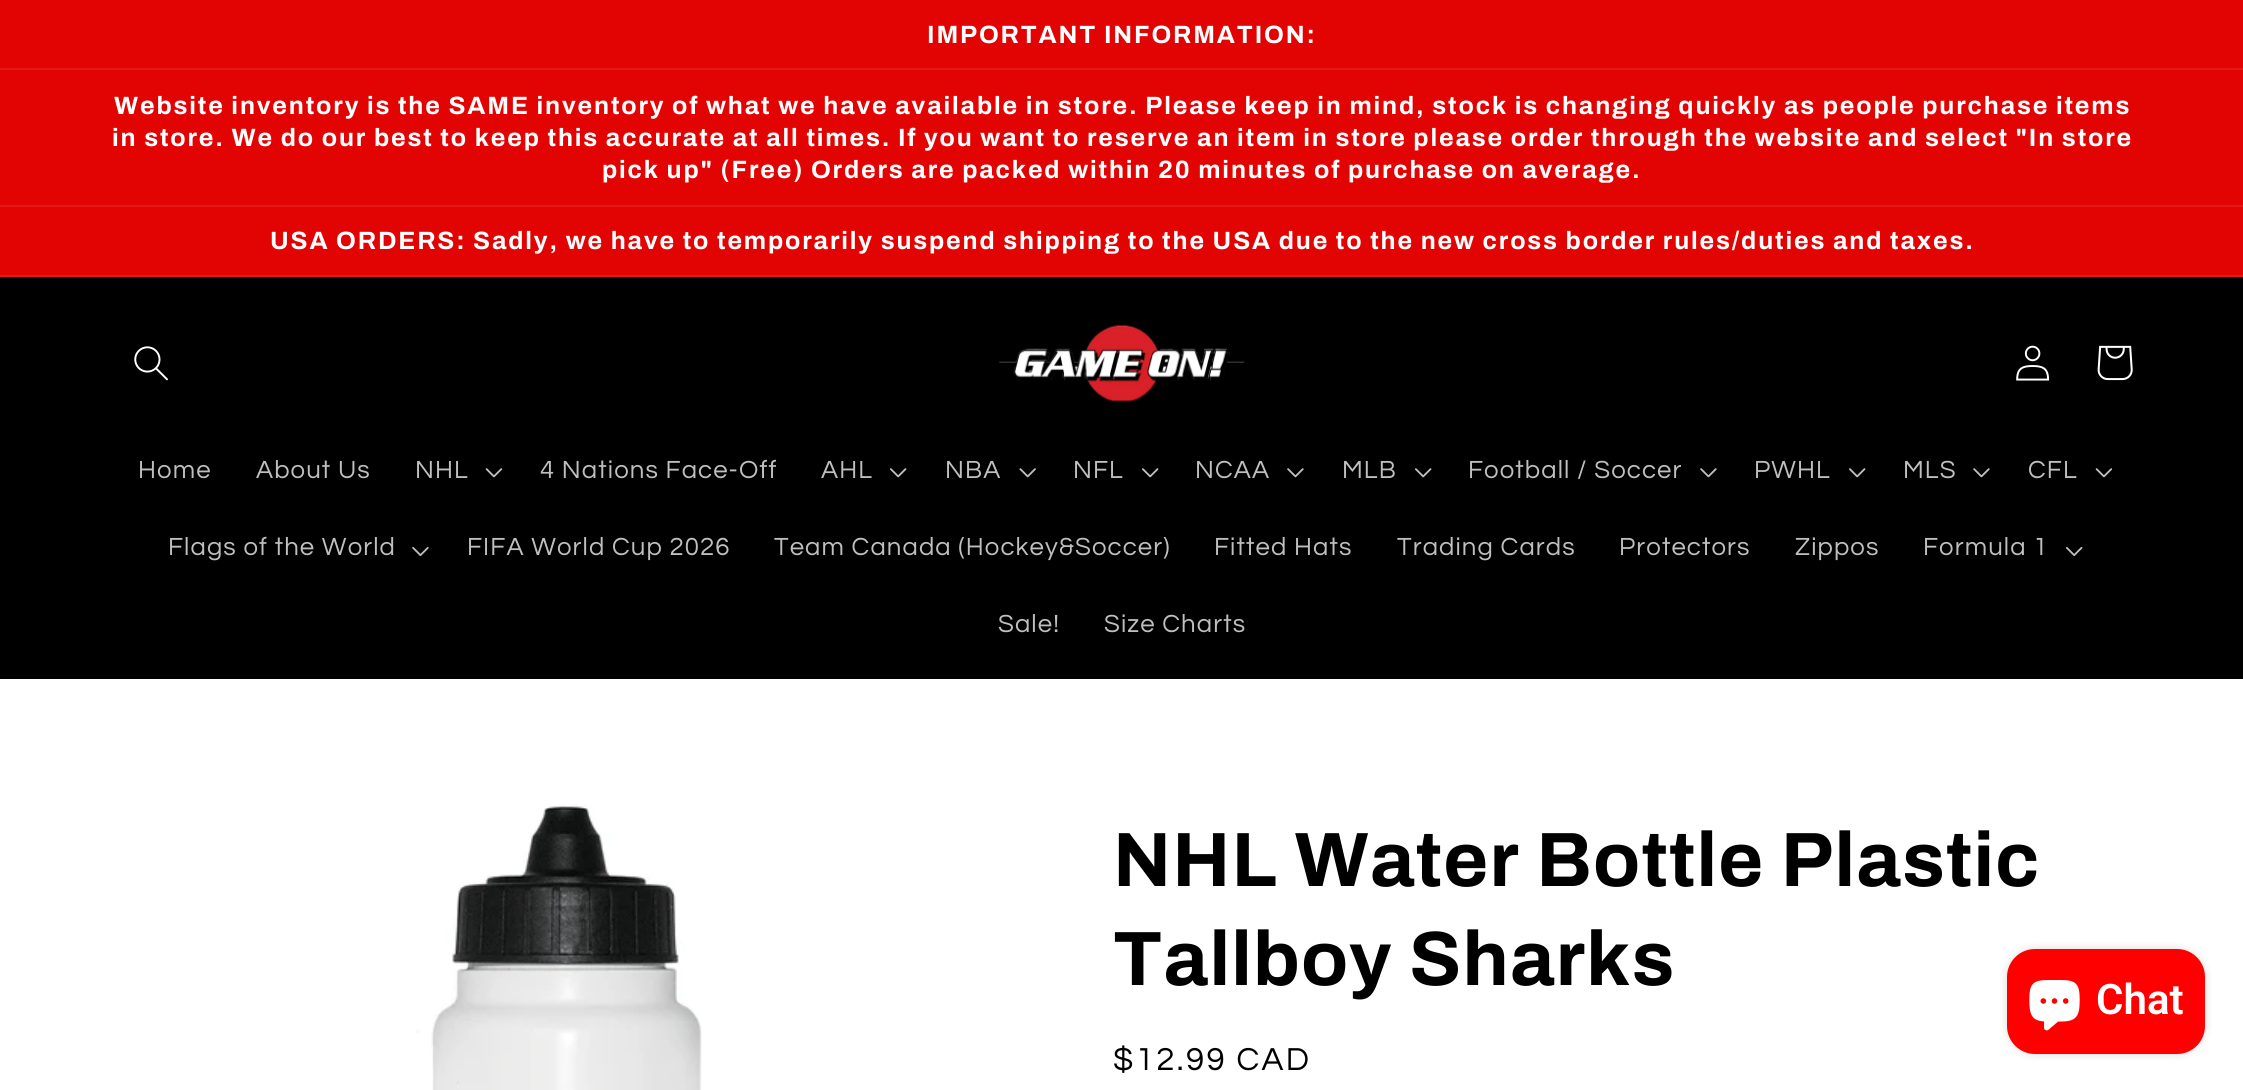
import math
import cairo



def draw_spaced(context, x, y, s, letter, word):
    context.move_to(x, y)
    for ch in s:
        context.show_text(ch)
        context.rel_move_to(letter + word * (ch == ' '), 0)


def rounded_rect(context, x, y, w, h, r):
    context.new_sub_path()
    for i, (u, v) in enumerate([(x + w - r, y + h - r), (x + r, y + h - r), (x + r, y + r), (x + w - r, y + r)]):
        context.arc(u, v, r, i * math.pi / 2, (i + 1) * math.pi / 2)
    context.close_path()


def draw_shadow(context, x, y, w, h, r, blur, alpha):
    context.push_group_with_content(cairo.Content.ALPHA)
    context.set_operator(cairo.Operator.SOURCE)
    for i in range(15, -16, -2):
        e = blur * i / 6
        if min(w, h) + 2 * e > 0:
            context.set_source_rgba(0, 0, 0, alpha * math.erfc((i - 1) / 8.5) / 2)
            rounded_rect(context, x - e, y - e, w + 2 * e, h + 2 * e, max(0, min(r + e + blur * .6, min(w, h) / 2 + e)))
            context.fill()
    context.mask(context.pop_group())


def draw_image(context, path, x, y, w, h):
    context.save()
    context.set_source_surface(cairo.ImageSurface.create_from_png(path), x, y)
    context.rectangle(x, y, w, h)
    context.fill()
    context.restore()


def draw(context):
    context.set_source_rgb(1, 1, 1)
    context.paint()
    context.set_source_rgb(225 / 255, 4 / 255, 3 / 255)
    context.rectangle(0, 0, 2243, 68)
    context.fill()
    context.set_source_rgb(227 / 255, 24 / 255, 23 / 255)
    context.rectangle(0, 68, 2243, 2)
    context.fill()
    context.set_source_rgb(225 / 255, 4 / 255, 3 / 255)
    context.rectangle(0, 70, 2243, 135)
    context.fill()
    context.set_source_rgb(227 / 255, 24 / 255, 23 / 255)
    context.rectangle(0, 205, 2243, 2)
    context.fill()
    context.set_source_rgb(225 / 255, 4 / 255, 3 / 255)
    context.rectangle(0, 207, 2243, 68)
    context.fill()
    context.set_source_rgb(227 / 255, 24 / 255, 23 / 255)
    context.rectangle(0, 275, 2243, 2)
    context.fill()
    context.set_source_rgb(0, 0, 0)
    context.rectangle(0, 277, 2243, 402)
    context.fill()
    draw_image(context, "images/1.png", 134, 346, 34, 35)
    draw_image(context, "images/2.png", 999, 324, 246, 77)
    draw_image(context, "images/3.png", 2016, 345, 34, 36)
    draw_image(context, "images/4.png", 2097, 345, 36, 36)
    draw_image(context, "images/5.png", 485, 468, 18, 10)
    draw_image(context, "images/6.png", 890, 468, 17, 10)
    draw_image(context, "images/7.png", 1019, 468, 17, 10)
    draw_image(context, "images/6.png", 1142, 468, 17, 10)
    draw_image(context, "images/8.png", 1287, 468, 17, 10)
    draw_image(context, "images/6.png", 1415, 468, 17, 10)
    draw_image(context, "images/8.png", 1700, 468, 17, 10)
    draw_image(context, "images/6.png", 1849, 468, 17, 10)
    draw_image(context, "images/8.png", 1973, 468, 17, 10)
    draw_image(context, "images/9.png", 2095, 468, 17, 10)
    draw_image(context, "images/10.png", 412, 547, 17, 9)
    draw_image(context, "images/11.png", 2066, 547, 17, 9)
    draw_image(context, "images/12.png", 416, 804, 286, 286)
    context.set_source_rgb(0, 0, 0)
    draw_shadow(context, 2007, 949, 198, 105, 28, 4.5, 0.15)
    context.set_source_rgb(1, 0, 0)
    rounded_rect(context, 2007, 949, 198, 105, 28)
    context.fill()
    draw_image(context, "images/13.png", 2029, 980, 51, 51)
    context.select_font_face("Archivo", cairo.FontSlant.NORMAL, cairo.FontWeight.BOLD)
    context.set_font_size(25.03)
    context.set_source_rgb(1, 1, 1)
    draw_spaced(context, 927, 43, "IMPORTANT INFORMATION:", 1.84, 0)
    draw_spaced(context, 114, 114, "Website inventory is the SAME inventory of what we have available in store. Please keep in mind, stock is changing quickly as people purchase items", 1.84, 0)
    draw_spaced(context, 112, 146, "in store. We do our best to keep this accurate at all times. If you want to reserve an item in store please order through the website and select \"In store", 1.84, 0)
    draw_spaced(context, 602, 178, "pick up\" (Free) Orders are packed within 20 minutes of purchase on average.", 1.84, 0)
    draw_spaced(context, 270, 249, "USA ORDERS: Sadly, we have to temporarily suspend shipping to the USA due to the new cross border rules/duties and taxes.", 1.84, 0)
    context.select_font_face("Questrial")
    context.set_font_size(25.75)
    context.set_source_rgb(191 / 255, 191 / 255, 191 / 255)
    draw_spaced(context, 138, 478, "Home", 1.1, 0)
    draw_spaced(context, 256, 478, "About Us", 1.1, 0)
    draw_spaced(context, 415, 478, "NHL", 1.1, 0)
    draw_spaced(context, 540, 478, "4 Nations Face-Off", 1.1, 0)
    draw_spaced(context, 821, 478, "AHL", 1.1, 0)
    draw_spaced(context, 945, 478, "NBA", 1.1, 0)
    draw_spaced(context, 1073, 478, "NFL", 1.1, 0)
    draw_spaced(context, 1195, 478, "NCAA", 1.1, 0)
    draw_spaced(context, 1342, 478, "MLB", 1.1, 0)
    draw_spaced(context, 1468, 478, "Football / Soccer", 1.1, 0)
    draw_spaced(context, 1754, 478, "PWHL", 1.1, 0)
    draw_spaced(context, 1903, 478, "MLS", 1.1, 0)
    draw_spaced(context, 2028, 478, "CFL", 1.1, 0)
    draw_spaced(context, 168, 555, "Flags of the World", 1.1, 0)
    draw_spaced(context, 467, 555, "FIFA World Cup 2026", 1.1, 0)
    draw_spaced(context, 774, 555, "Team Canada (Hockey&Soccer)", 1.1, 0)
    draw_spaced(context, 1214, 555, "Fitted Hats", 1.1, 0)
    draw_spaced(context, 1397, 555, "Trading Cards", 1.1, 0)
    draw_spaced(context, 1619, 555, "Protectors", 1.1, 0)
    draw_spaced(context, 1795, 555, "Zippos", 1.1, 0)
    draw_spaced(context, 1923, 555, "Formula 1", 1.1, 0)
    draw_spaced(context, 998, 632, "Sale!", 1.1, 0)
    draw_spaced(context, 1104, 632, "Size Charts", 1.1, 0)
    context.select_font_face("Archivo", cairo.FontSlant.NORMAL, cairo.FontWeight.BOLD)
    context.set_font_size(77)
    context.set_source_rgb(0, 0, 0)
    draw_spaced(context, 1113, 886, "NHL Water Bottle Plastic", 1.2, 0)
    draw_spaced(context, 1113, 985, "Tallboy Sharks", 1.2, 0)
    context.select_font_face("Questrial")
    context.set_font_size(33)
    draw_spaced(context, 1113, 1070, "$12.99 CAD", 2.4, 0)
    context.select_font_face("Roboto SemiBold")
    context.set_font_size(42)
    context.set_source_rgb(1, 1, 1)
    context.move_to(2096, 1014)
    context.show_text("Chat")


surface = cairo.ImageSurface(cairo.Format.RGB24, 2243, 1090)
context = cairo.Context(surface)
options = cairo.FontOptions()
options.set_hint_metrics(cairo.HintMetrics.OFF)
options.set_hint_style(cairo.HintStyle.NONE)
context.set_font_options(options)
context.set_miter_limit(4)
draw(context)
surface.write_to_png("out.png")
